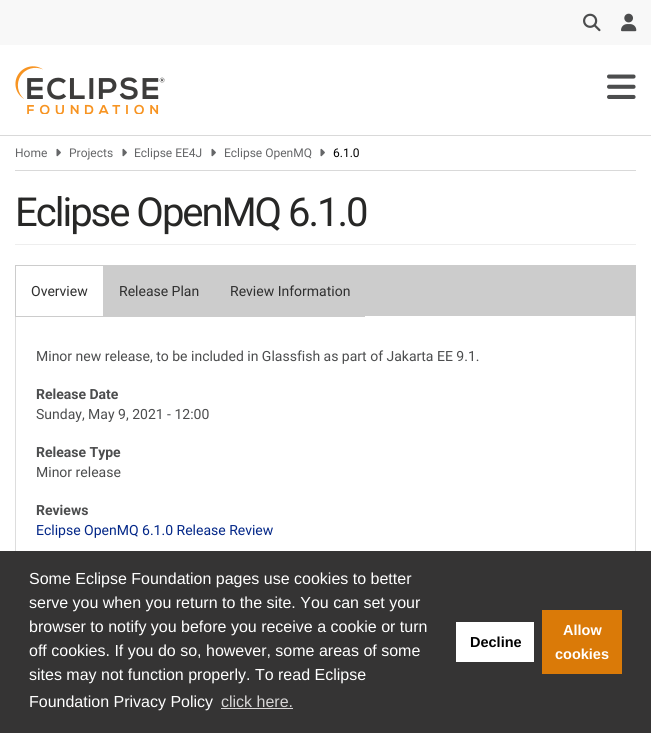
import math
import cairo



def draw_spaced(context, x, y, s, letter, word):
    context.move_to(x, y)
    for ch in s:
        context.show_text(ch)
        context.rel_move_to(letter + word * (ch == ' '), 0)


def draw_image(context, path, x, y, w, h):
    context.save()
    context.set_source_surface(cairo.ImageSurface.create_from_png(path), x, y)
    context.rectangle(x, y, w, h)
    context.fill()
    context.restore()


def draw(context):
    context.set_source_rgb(1, 1, 1)
    context.paint()
    context.set_source_rgb(248 / 255, 248 / 255, 248 / 255)
    context.rectangle(0, 0, 651, 45)
    context.fill()
    draw_image(context, "images/1.png", 583, 13, 18, 19)
    draw_image(context, "images/2.png", 621, 13, 16, 19)
    context.set_source_rgb(217 / 255, 217 / 255, 217 / 255)
    context.rectangle(0, 135, 651, 1)
    context.fill()
    draw_image(context, "images/3.png", 15, 66, 150, 48)
    draw_image(context, "images/4.png", 607, 74, 29, 25)
    context.rectangle(15, 170, 621, 1)
    context.fill()
    draw_image(context, "images/5.png", 56, 148, 5, 9)
    draw_image(context, "images/5.png", 122, 148, 5, 9)
    draw_image(context, "images/5.png", 211, 148, 5, 9)
    draw_image(context, "images/5.png", 320, 148, 5, 9)
    context.set_source_rgb(238 / 255, 238 / 255, 238 / 255)
    context.rectangle(15, 244, 621, 1)
    context.fill()
    context.set_source_rgb(204 / 255, 204 / 255, 204 / 255)
    context.rectangle(365, 265, 271, 51)
    context.fill()
    context.rectangle(15, 265, 88, 1)
    context.fill()
    context.set_source_rgb(221 / 255, 221 / 255, 221 / 255)
    context.rectangle(15, 316, 1, 235)
    context.fill()
    context.set_source_rgb(204 / 255, 204 / 255, 204 / 255)
    context.rectangle(15, 316, 88, 1)
    context.fill()
    context.rectangle(15, 265, 1, 52)
    context.fill()
    context.rectangle(103, 265, 262, 52)
    context.fill()
    context.set_source_rgb(221 / 255, 221 / 255, 221 / 255)
    context.rectangle(635, 316, 1, 235)
    context.fill()
    context.set_source_rgb(53 / 255, 52 / 255, 52 / 255)
    context.rectangle(0, 551, 651, 182)
    context.fill()
    context.set_source_rgb(215 / 255, 214 / 255, 214 / 255)
    context.rectangle(221, 708, 72, 1)
    context.fill()
    context.set_source_rgb(1, 1, 1)
    context.rectangle(456, 622, 78, 40)
    context.fill()
    context.set_source_rgb(218 / 255, 122 / 255, 8 / 255)
    context.rectangle(542, 610, 80, 64)
    context.fill()
    context.select_font_face("Roboto")
    context.set_font_size(12)
    context.set_source_rgb(101 / 255, 102 / 255, 104 / 255)
    context.move_to(15, 157)
    context.show_text("Home")
    context.move_to(69, 157)
    context.show_text("Projects")
    context.move_to(134, 157)
    context.show_text("Eclipse EE4J")
    context.move_to(224, 157)
    context.show_text("Eclipse OpenMQ")
    context.set_source_rgb(0, 0, 0)
    context.move_to(333, 157)
    context.show_text("6.1.0")
    context.set_font_size(40)
    context.set_source_rgb(39 / 255, 39 / 255, 38 / 255)
    draw_spaced(context, 15, 226, "Eclipse OpenMQ 6.1.0", -2, 0)
    context.set_font_size(14)
    context.set_source_rgb(47 / 255, 47 / 255, 47 / 255)
    context.move_to(31, 296)
    context.show_text("Overview")
    context.move_to(119, 296)
    context.show_text("Release Plan")
    context.move_to(230, 296)
    context.show_text("Review Information")
    context.set_source_rgb(76 / 255, 77 / 255, 78 / 255)
    context.move_to(36, 361)
    context.show_text("Minor new release, to be included in Glassfish as part of Jakarta EE 9.1.")
    context.select_font_face("Roboto", cairo.FontSlant.NORMAL, cairo.FontWeight.BOLD)
    context.move_to(36, 399)
    context.show_text("Release Date")
    context.select_font_face("Roboto")
    context.move_to(36, 419)
    context.show_text("Sunday, May 9, 2021 - 12:00")
    context.select_font_face("Roboto", cairo.FontSlant.NORMAL, cairo.FontWeight.BOLD)
    context.move_to(36, 457)
    context.show_text("Release Type")
    context.select_font_face("Roboto")
    context.move_to(36, 477)
    context.show_text("Minor release")
    context.select_font_face("Roboto", cairo.FontSlant.NORMAL, cairo.FontWeight.BOLD)
    context.move_to(36, 515)
    context.show_text("Reviews")
    context.select_font_face("Roboto")
    context.set_source_rgb(3 / 255, 39 / 255, 136 / 255)
    context.move_to(36, 535)
    context.show_text("Eclipse OpenMQ 6.1.0 Release Review")
    context.select_font_face("Liberation Sans")
    context.set_font_size(16)
    context.set_source_rgb(1, 1, 1)
    context.move_to(29, 584)
    context.show_text("Some Eclipse Foundation pages use cookies to better")
    context.move_to(29, 608)
    context.show_text("serve you when you return to the site. You can set your")
    context.move_to(29, 632)
    context.show_text("browser to notify you before you receive a cookie or turn")
    context.move_to(29, 656)
    context.show_text("off cookies. If you do so, however, some areas of some")
    context.move_to(29, 680)
    context.show_text("sites may not function properly. To read Eclipse")
    context.move_to(29, 707)
    context.show_text("Foundation Privacy Policy")
    context.set_source_rgb(215 / 255, 214 / 255, 214 / 255)
    context.move_to(221, 707)
    context.show_text("click here.")
    context.select_font_face("Liberation Sans", cairo.FontSlant.NORMAL, cairo.FontWeight.BOLD)
    context.set_font_size(14.5)
    context.set_source_rgb(0, 0, 0)
    context.move_to(470, 647)
    context.show_text("Decline")
    context.set_source_rgb(1, 1, 1)
    context.move_to(563, 635)
    context.show_text("Allow")
    context.move_to(555, 659)
    context.show_text("cookies")


surface = cairo.ImageSurface(cairo.Format.RGB24, 651, 733)
context = cairo.Context(surface)
options = cairo.FontOptions()
options.set_hint_metrics(cairo.HintMetrics.OFF)
options.set_hint_style(cairo.HintStyle.NONE)
context.set_font_options(options)
context.set_miter_limit(4)
draw(context)
surface.write_to_png("out.png")
